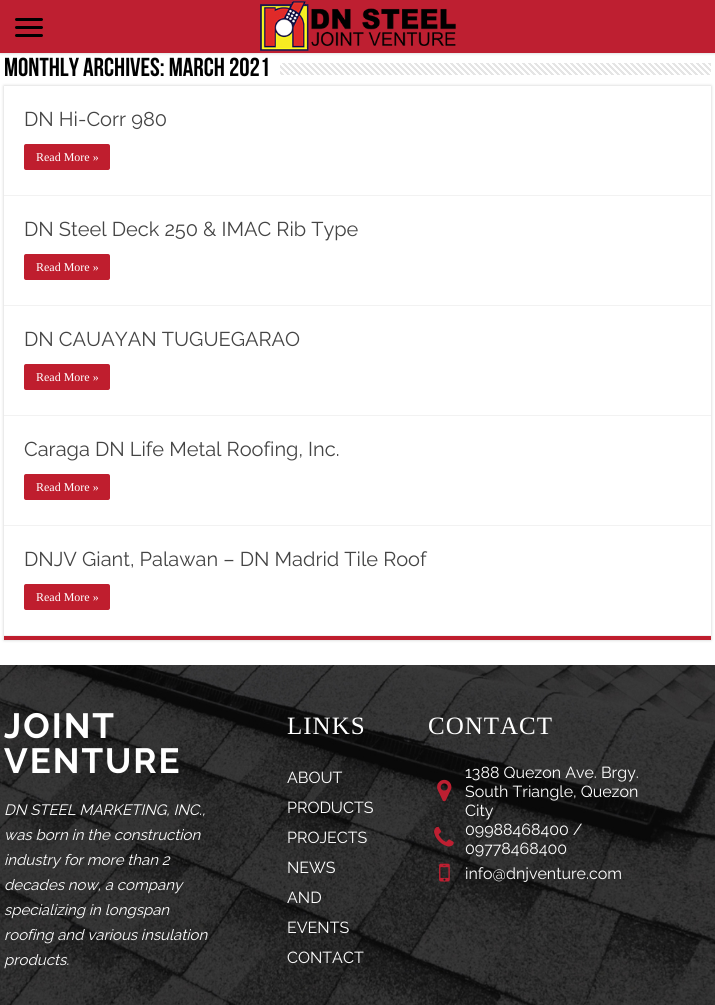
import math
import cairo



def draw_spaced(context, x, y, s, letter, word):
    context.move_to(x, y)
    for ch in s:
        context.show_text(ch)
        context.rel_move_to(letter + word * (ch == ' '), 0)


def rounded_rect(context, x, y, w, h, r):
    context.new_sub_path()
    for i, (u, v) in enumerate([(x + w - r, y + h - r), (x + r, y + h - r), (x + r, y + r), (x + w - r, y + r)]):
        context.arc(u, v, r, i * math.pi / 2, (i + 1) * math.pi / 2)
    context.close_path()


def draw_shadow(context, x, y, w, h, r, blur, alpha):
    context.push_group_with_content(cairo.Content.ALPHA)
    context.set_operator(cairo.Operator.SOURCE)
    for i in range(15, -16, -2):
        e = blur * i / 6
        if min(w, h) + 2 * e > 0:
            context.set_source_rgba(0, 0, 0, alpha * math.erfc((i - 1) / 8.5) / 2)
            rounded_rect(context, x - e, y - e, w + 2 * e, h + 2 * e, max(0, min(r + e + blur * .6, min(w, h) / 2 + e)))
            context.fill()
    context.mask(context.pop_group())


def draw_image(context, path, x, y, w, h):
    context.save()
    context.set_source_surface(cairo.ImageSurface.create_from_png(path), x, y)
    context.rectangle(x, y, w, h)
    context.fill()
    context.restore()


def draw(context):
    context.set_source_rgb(1, 1, 1)
    context.paint()
    context.set_source_rgb(202 / 255, 202 / 255, 202 / 255)
    draw_shadow(context, 0, 0, 715, 53, 0, 1.5, 1)
    context.set_source_rgb(190 / 255, 31 / 255, 49 / 255)
    context.rectangle(0, 0, 715, 53)
    context.fill()
    context.set_source_rgb(0, 0, 0)
    rounded_rect(context, 15, 18, 28, 3, 1.5)
    context.fill()
    rounded_rect(context, 15, 26, 28, 3, 1.5)
    context.fill()
    rounded_rect(context, 15, 34, 28, 3, 1.5)
    context.fill()
    draw_image(context, "images/1.png", 260, 1, 196, 50)
    draw_image(context, "images/2.png", 280, 63, 431, 12)
    context.save()
    context.set_fill_rule(cairo.FillRule.EVEN_ODD)
    context.new_path()
    context.move_to(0, 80)
    context.line_to(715, 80)
    context.line_to(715, 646)
    context.line_to(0, 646)
    context.close_path()
    context.move_to(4, 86)
    context.line_to(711, 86)
    context.line_to(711, 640)
    context.line_to(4, 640)
    context.close_path()
    context.clip()
    context.set_source_rgb(202 / 255, 202 / 255, 202 / 255)
    draw_shadow(context, 4, 86, 707, 554, 0, 1.5, 1)
    context.restore()
    context.set_source_rgb(191 / 255, 30 / 255, 46 / 255)
    context.rectangle(4, 636, 707, 4)
    context.fill()
    context.set_source_rgb(242 / 255, 242 / 255, 242 / 255)
    context.rectangle(4, 195, 707, 1)
    context.fill()
    context.set_source_rgb(191 / 255, 30 / 255, 46 / 255)
    rounded_rect(context, 24, 144, 86, 26, 2)
    context.fill()
    context.set_source_rgb(242 / 255, 242 / 255, 242 / 255)
    context.rectangle(4, 305, 707, 1)
    context.fill()
    context.set_source_rgb(191 / 255, 30 / 255, 46 / 255)
    rounded_rect(context, 24, 254, 86, 26, 2)
    context.fill()
    context.set_source_rgb(242 / 255, 242 / 255, 242 / 255)
    context.rectangle(4, 415, 707, 1)
    context.fill()
    context.set_source_rgb(191 / 255, 30 / 255, 46 / 255)
    rounded_rect(context, 24, 364, 86, 26, 2)
    context.fill()
    context.set_source_rgb(242 / 255, 242 / 255, 242 / 255)
    context.rectangle(4, 525, 707, 1)
    context.fill()
    context.set_source_rgb(191 / 255, 30 / 255, 46 / 255)
    rounded_rect(context, 24, 474, 86, 26, 2)
    context.fill()
    context.set_source_rgb(242 / 255, 242 / 255, 242 / 255)
    context.rectangle(4, 635, 707, 1)
    context.fill()
    context.set_source_rgb(191 / 255, 30 / 255, 46 / 255)
    rounded_rect(context, 24, 584, 86, 26, 2)
    context.fill()
    draw_image(context, "images/3.png", 0, 665, 715, 340)
    draw_image(context, "images/4.png", 437, 779, 15, 23)
    draw_image(context, "images/5.png", 434, 826, 20, 21)
    draw_image(context, "images/6.png", 439, 863, 11, 19)
    context.select_font_face("Bebas Neue", cairo.FontSlant.NORMAL, cairo.FontWeight.BOLD)
    context.set_font_size(26)
    context.set_source_rgb(0, 0, 0)
    context.move_to(4, 76)
    context.show_text("Monthly Archives: March 2021")
    context.select_font_face("Raleway")
    context.set_font_size(20)
    context.set_source_rgb(68 / 255, 68 / 255, 68 / 255)
    context.move_to(24, 126)
    context.show_text("DN Hi-Corr 980")
    context.select_font_face("Liberation Serif")
    context.set_font_size(12)
    context.set_source_rgb(1, 1, 1)
    context.move_to(36, 161)
    context.show_text("Read More »")
    context.select_font_face("Raleway")
    context.set_font_size(20)
    context.set_source_rgb(68 / 255, 68 / 255, 68 / 255)
    context.move_to(24, 236)
    context.show_text("DN Steel Deck 250 & IMAC Rib Type")
    context.select_font_face("Liberation Serif")
    context.set_font_size(12)
    context.set_source_rgb(1, 1, 1)
    context.move_to(36, 271)
    context.show_text("Read More »")
    context.select_font_face("Raleway")
    context.set_font_size(20)
    context.set_source_rgb(68 / 255, 68 / 255, 68 / 255)
    context.move_to(24, 346)
    context.show_text("DN CAUAYAN TUGUEGARAO")
    context.select_font_face("Liberation Serif")
    context.set_font_size(12)
    context.set_source_rgb(1, 1, 1)
    context.move_to(36, 381)
    context.show_text("Read More »")
    context.select_font_face("Raleway")
    context.set_font_size(20)
    context.set_source_rgb(68 / 255, 68 / 255, 68 / 255)
    context.move_to(24, 456)
    context.show_text("Caraga DN Life Metal Roofing, Inc.")
    context.select_font_face("Liberation Serif")
    context.set_font_size(12)
    context.set_source_rgb(1, 1, 1)
    context.move_to(36, 491)
    context.show_text("Read More »")
    context.select_font_face("Raleway")
    context.set_font_size(20)
    context.set_source_rgb(68 / 255, 68 / 255, 68 / 255)
    context.move_to(24, 566)
    context.show_text("DNJV Giant, Palawan – DN Madrid Tile Roof")
    context.select_font_face("Liberation Serif")
    context.set_font_size(12)
    context.set_source_rgb(1, 1, 1)
    context.move_to(36, 601)
    context.show_text("Read More »")
    context.select_font_face("Raleway", cairo.FontSlant.NORMAL, cairo.FontWeight.BOLD)
    context.set_font_size(35)
    draw_spaced(context, 4, 738, "JOINT", 2, 0)
    draw_spaced(context, 4, 773, "VENTURE", 2, 0)
    context.select_font_face("Raleway", cairo.FontSlant.ITALIC)
    context.set_font_size(15)
    context.move_to(4, 815)
    context.show_text("DN STEEL MARKETING, INC.,")
    context.move_to(4, 840)
    context.show_text("was born in the construction")
    context.move_to(4, 865)
    context.show_text("industry for more than 2")
    context.move_to(4, 890)
    context.show_text("decades now, a company")
    context.move_to(4, 915)
    context.show_text("specializing in longspan")
    context.move_to(4, 940)
    context.show_text("roofing and various insulation")
    context.move_to(4, 965)
    context.show_text("products.")
    context.select_font_face("Liberation Serif")
    context.set_font_size(25)
    draw_spaced(context, 287, 734, "LINKS", 1, 0)
    context.select_font_face("Raleway")
    context.set_font_size(16)
    context.move_to(287, 783)
    context.show_text("ABOUT")
    context.move_to(287, 813)
    context.show_text("PRODUCTS")
    context.move_to(287, 843)
    context.show_text("PROJECTS")
    context.move_to(287, 873)
    context.show_text("NEWS")
    context.move_to(287, 903)
    context.show_text("AND")
    context.move_to(287, 933)
    context.show_text("EVENTS")
    context.move_to(287, 963)
    context.show_text("CONTACT")
    context.select_font_face("Liberation Serif")
    context.set_font_size(25)
    draw_spaced(context, 428, 734, "CONTACT", 1, 0)
    context.select_font_face("Raleway")
    context.set_font_size(16)
    context.move_to(465, 778)
    context.show_text("1388 Quezon Ave. Brgy.")
    context.move_to(465, 797)
    context.show_text("South Triangle, Quezon")
    context.move_to(465, 816)
    context.show_text("City")
    context.move_to(465, 835)
    context.show_text("09988468400 /")
    context.move_to(465, 854)
    context.show_text("09778468400")
    context.move_to(465, 879)
    context.show_text("info@dnjventure.com")


surface = cairo.ImageSurface(cairo.Format.RGB24, 715, 1005)
context = cairo.Context(surface)
options = cairo.FontOptions()
options.set_hint_metrics(cairo.HintMetrics.OFF)
options.set_hint_style(cairo.HintStyle.NONE)
context.set_font_options(options)
context.set_miter_limit(4)
draw(context)
surface.write_to_png("out.png")
